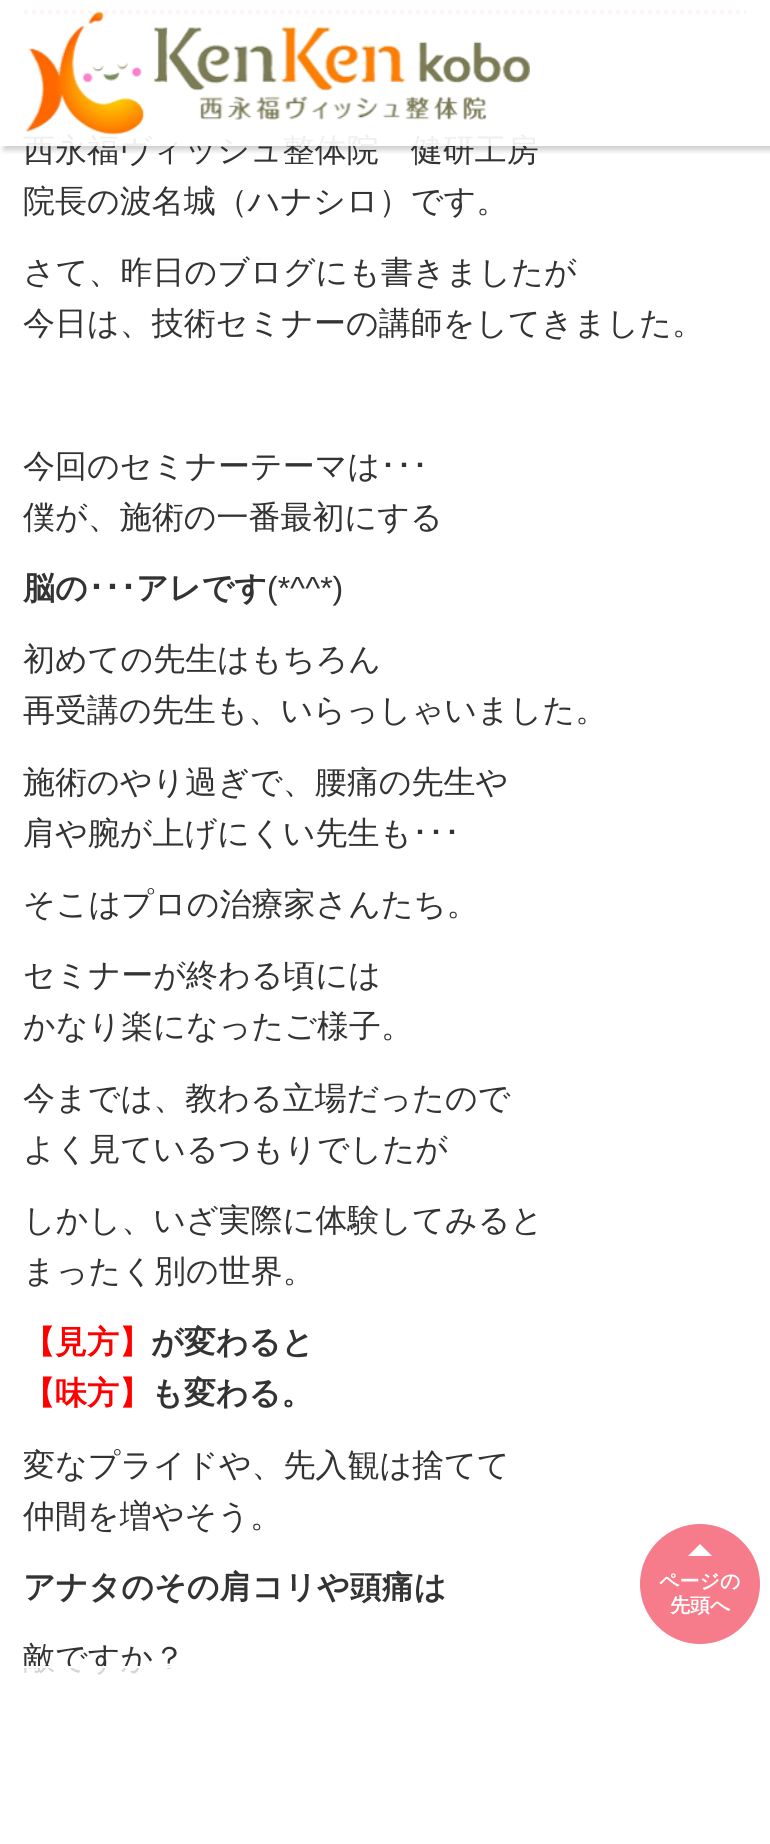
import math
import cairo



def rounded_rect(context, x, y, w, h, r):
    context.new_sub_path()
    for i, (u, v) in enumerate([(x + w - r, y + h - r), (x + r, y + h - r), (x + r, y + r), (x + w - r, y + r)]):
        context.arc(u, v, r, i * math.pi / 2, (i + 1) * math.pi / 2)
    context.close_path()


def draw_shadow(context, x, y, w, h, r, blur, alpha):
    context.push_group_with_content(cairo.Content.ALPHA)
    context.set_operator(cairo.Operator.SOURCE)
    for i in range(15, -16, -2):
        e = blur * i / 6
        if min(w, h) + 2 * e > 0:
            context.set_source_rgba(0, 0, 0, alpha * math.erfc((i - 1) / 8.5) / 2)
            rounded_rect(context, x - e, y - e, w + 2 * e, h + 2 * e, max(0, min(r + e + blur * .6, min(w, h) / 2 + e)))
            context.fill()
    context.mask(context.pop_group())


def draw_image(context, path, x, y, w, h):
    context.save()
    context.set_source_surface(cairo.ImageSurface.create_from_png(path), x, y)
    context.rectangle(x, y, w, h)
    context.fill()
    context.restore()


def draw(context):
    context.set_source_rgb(1, 1, 1)
    context.paint()
    context.new_path()
    context.move_to(24, 12)
    context.line_to(746, 12)
    context.set_source_rgb(247 / 255, 124 / 255, 139 / 255)
    context.set_line_width(4)
    context.set_dash([4, 4])
    context.stroke()
    context.save()
    context.rectangle(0, 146, 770, 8)
    context.clip()
    context.set_source_rgb(0, 0, 0)
    draw_shadow(context, 4, 4, 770, 146, 0, 3, 0.2)
    context.restore()
    context.arc(700, 1584, 60, 0, 2 * math.pi)
    context.fill()
    context.set_source_rgb(1, 1, 1)
    context.new_path()
    context.move_to(712, 1556)
    context.line_to(688, 1556)
    context.line_to(700, 1544)
    context.close_path()
    context.fill()
    context.select_font_face("WenQuanYi Zen Hei Medium")
    context.set_font_size(32)
    context.set_source_rgb(51 / 255, 51 / 255, 51 / 255)
    context.move_to(23, 161)
    context.show_text("西永福ヴィッシュ整体院　健研工房")
    context.set_source_rgba(1, 1, 1, 0.92)
    context.rectangle(23, 10, 723, 136)
    context.fill()
    draw_image(context, "images/1.png", 25, 11, 505, 124)
    context.set_source_rgb(51 / 255, 51 / 255, 51 / 255)
    context.move_to(23, 212)
    context.show_text("院長の波名城（ハナシロ）です。")
    context.move_to(23, 283)
    context.show_text("さて、昨日のブログにも書きましたが")
    context.move_to(23, 334)
    context.show_text("今日は、技術セミナーの講師をしてきました。")
    context.move_to(23, 477)
    context.show_text("今回のセミナーテーマは")
    context.select_font_face("IPAPGothic")
    context.move_to(380, 477)
    context.show_text("･･･")
    context.select_font_face("WenQuanYi Zen Hei Medium")
    context.move_to(23, 528)
    context.show_text("僕が、施術の一番最初にする")
    context.select_font_face("WenQuanYi Zen Hei", cairo.FontSlant.NORMAL, cairo.FontWeight.BOLD)
    context.move_to(23, 599)
    context.show_text("脳の")
    context.select_font_face("IPAPGothic", cairo.FontSlant.NORMAL, cairo.FontWeight.BOLD)
    context.move_to(88, 599)
    context.show_text("･･･")
    context.select_font_face("WenQuanYi Zen Hei", cairo.FontSlant.NORMAL, cairo.FontWeight.BOLD)
    context.move_to(136, 599)
    context.show_text("アレです")
    context.select_font_face("Liberation Sans")
    context.move_to(267, 599)
    context.show_text("(*^^*)")
    context.select_font_face("WenQuanYi Zen Hei Medium")
    context.move_to(23, 670)
    context.show_text("初めての先生はもちろん")
    context.move_to(23, 721)
    context.show_text("再受講の先生も、いらっしゃいました。")
    context.move_to(23, 793)
    context.show_text("施術のやり過ぎで、腰痛の先生や")
    context.move_to(23, 844)
    context.show_text("肩や腕が上げにくい先生も")
    context.select_font_face("IPAPGothic")
    context.move_to(412, 844)
    context.show_text("･･･")
    context.select_font_face("WenQuanYi Zen Hei Medium")
    context.move_to(23, 915)
    context.show_text("そこはプロの治療家さんたち。")
    context.move_to(23, 986)
    context.show_text("セミナーが終わる頃には")
    context.move_to(23, 1037)
    context.show_text("かなり楽になったご様子。")
    context.move_to(23, 1109)
    context.show_text("今までは、教わる立場だったので")
    context.move_to(23, 1160)
    context.show_text("よく見ているつもりでしたが")
    context.move_to(23, 1231)
    context.show_text("しかし、いざ実際に体験してみると")
    context.move_to(23, 1282)
    context.show_text("まったく別の世界。")
    context.select_font_face("WenQuanYi Zen Hei", cairo.FontSlant.NORMAL, cairo.FontWeight.BOLD)
    context.set_source_rgb(1, 0, 0)
    context.move_to(23, 1353)
    context.show_text("【見方】")
    context.set_source_rgb(51 / 255, 51 / 255, 51 / 255)
    context.move_to(151, 1353)
    context.show_text("が変わると")
    context.set_source_rgb(1, 0, 0)
    context.move_to(23, 1404)
    context.show_text("【味方】")
    context.set_source_rgb(51 / 255, 51 / 255, 51 / 255)
    context.move_to(151, 1404)
    context.show_text("も変わる。")
    context.select_font_face("WenQuanYi Zen Hei Medium")
    context.move_to(23, 1476)
    context.show_text("変なプライドや、先入観は捨てて")
    context.move_to(23, 1527)
    context.show_text("仲間を増やそう。")
    context.select_font_face("WenQuanYi Zen Hei", cairo.FontSlant.NORMAL, cairo.FontWeight.BOLD)
    context.move_to(23, 1598)
    context.show_text("アナタのその肩コリや頭痛は")
    context.select_font_face("WenQuanYi Zen Hei Medium")
    context.move_to(23, 1669)
    context.show_text("敵ですか？")
    context.set_source_rgb(1, 1, 1)
    context.rectangle(24, 1666, 147, 2)
    context.fill()
    context.set_source_rgba(1, 1, 1, 0.8)
    context.rectangle(24, 1668, 147, 7)
    context.fill()
    context.select_font_face("WenQuanYi Zen Hei", cairo.FontSlant.NORMAL, cairo.FontWeight.BOLD)
    context.set_font_size(20)
    context.set_source_rgb(1, 1, 1)
    context.move_to(659, 1588)
    context.show_text("ページの")
    context.move_to(670, 1612)
    context.show_text("先頭へ")


surface = cairo.ImageSurface(cairo.Format.RGB24, 770, 1844)
context = cairo.Context(surface)
options = cairo.FontOptions()
options.set_hint_metrics(cairo.HintMetrics.OFF)
options.set_hint_style(cairo.HintStyle.NONE)
context.set_font_options(options)
context.set_miter_limit(4)
draw(context)
surface.write_to_png("out.png")
